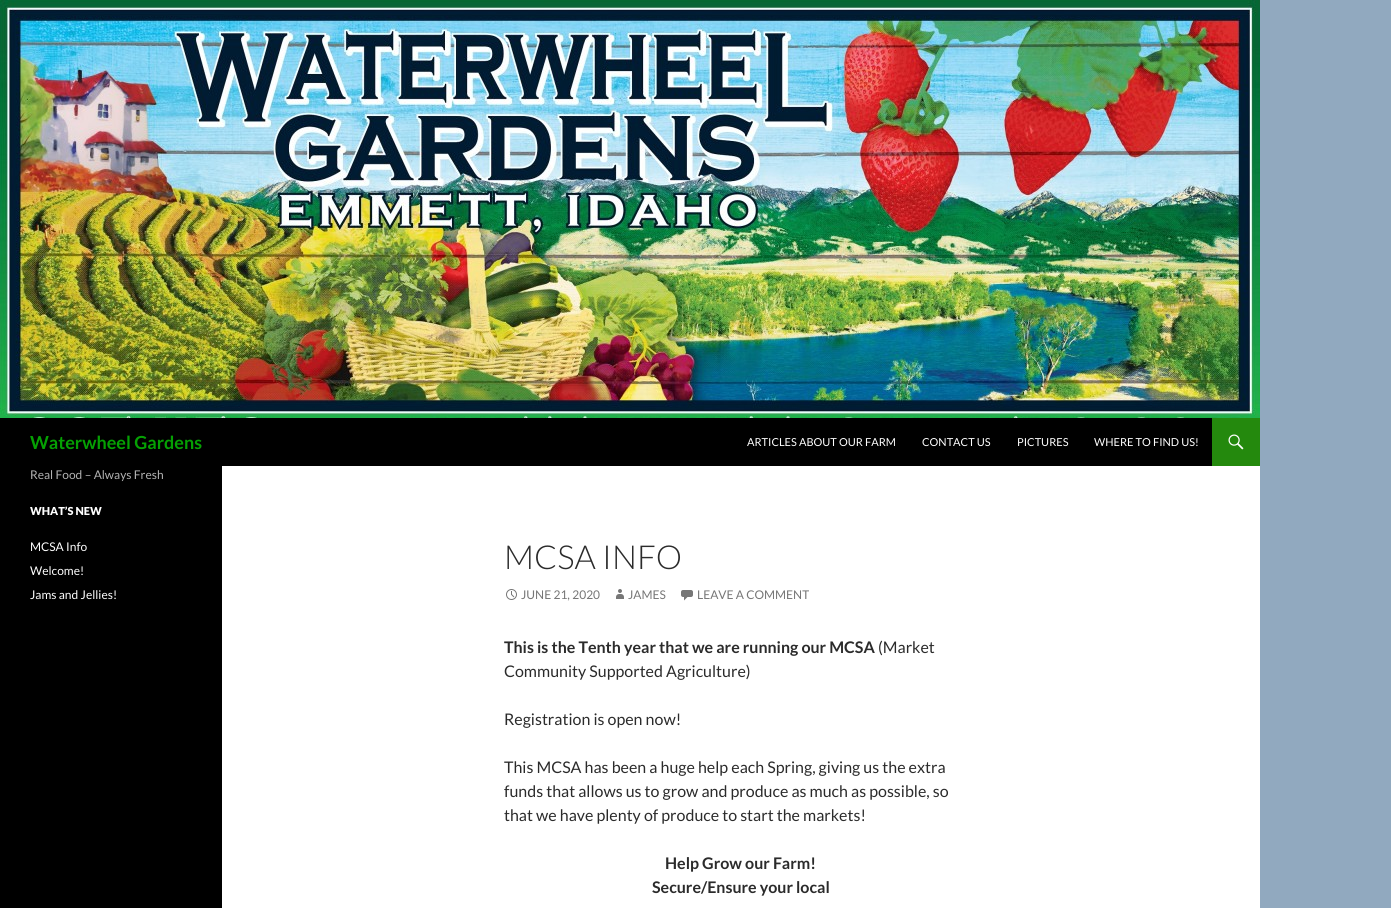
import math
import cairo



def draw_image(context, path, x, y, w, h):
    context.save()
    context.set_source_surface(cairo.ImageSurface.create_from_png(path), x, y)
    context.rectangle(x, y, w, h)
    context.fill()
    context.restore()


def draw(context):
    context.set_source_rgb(145 / 255, 169 / 255, 191 / 255)
    context.paint()
    context.set_source_rgb(1, 1, 1)
    context.rectangle(222, 466, 1038, 442)
    context.fill()
    draw_image(context, "images/1.png", 0, 0, 1260, 418)
    context.set_source_rgb(0, 0, 0)
    context.rectangle(0, 418, 1212, 48)
    context.fill()
    context.set_source_rgb(36 / 255, 137 / 255, 13 / 255)
    context.rectangle(1212, 418, 48, 48)
    context.fill()
    draw_image(context, "images/2.png", 1228, 434, 16, 16)
    context.set_source_rgb(0, 0, 0)
    context.rectangle(0, 466, 222, 442)
    context.fill()
    draw_image(context, "images/3.png", 506, 589, 11, 11)
    draw_image(context, "images/4.png", 616, 589, 8, 10)
    draw_image(context, "images/5.png", 681, 590, 12, 11)
    context.select_font_face("Lato", cairo.FontSlant.NORMAL, cairo.FontWeight.BOLD)
    context.set_font_size(18)
    context.set_source_rgb(5 / 255, 160 / 255, 3 / 255)
    context.move_to(30, 449)
    context.show_text("Waterwheel Gardens")
    context.select_font_face("Lato")
    context.set_font_size(11)
    context.set_source_rgb(1, 1, 1)
    context.move_to(747, 446)
    context.show_text("ARTICLES ABOUT OUR FARM")
    context.move_to(922, 446)
    context.show_text("CONTACT US")
    context.move_to(1017, 446)
    context.show_text("PICTURES")
    context.move_to(1094, 446)
    context.show_text("WHERE TO FIND US!")
    context.set_font_size(12)
    context.set_source_rgb(179 / 255, 179 / 255, 179 / 255)
    context.move_to(30, 479)
    context.show_text("Real Food – Always Fresh")
    context.select_font_face("Lato Black")
    context.set_font_size(11)
    context.set_source_rgb(1, 1, 1)
    context.move_to(30, 515)
    context.show_text("WHAT’S NEW")
    context.select_font_face("Lato")
    context.set_font_size(12)
    context.move_to(30, 551)
    context.show_text("MCSA Info")
    context.move_to(30, 575)
    context.show_text("Welcome!")
    context.move_to(30, 599)
    context.show_text("Jams and Jellies!")
    context.select_font_face("Lato Light")
    context.set_font_size(33)
    context.set_source_rgb(43 / 255, 43 / 255, 43 / 255)
    context.move_to(504, 569)
    context.show_text("MCSA INFO")
    context.select_font_face("Lato")
    context.set_font_size(12)
    context.set_source_rgb(118 / 255, 118 / 255, 118 / 255)
    context.move_to(521, 599)
    context.show_text("JUNE 21, 2020")
    context.move_to(628, 599)
    context.show_text("JAMES")
    context.move_to(697, 599)
    context.show_text("LEAVE A COMMENT")
    context.select_font_face("Lato", cairo.FontSlant.NORMAL, cairo.FontWeight.BOLD)
    context.set_font_size(16)
    context.set_source_rgb(43 / 255, 43 / 255, 43 / 255)
    context.move_to(504, 653)
    context.show_text("This is the Tenth year that we are running our MCSA")
    context.select_font_face("Lato")
    context.move_to(878, 653)
    context.show_text("(Market")
    context.move_to(504, 677)
    context.show_text("Community Supported Agriculture)")
    context.move_to(504, 725)
    context.show_text("Registration is open now!")
    context.move_to(504, 773)
    context.show_text("This MCSA has been a huge help each Spring, giving us the extra")
    context.move_to(504, 797)
    context.show_text("funds that allows us to grow and produce as much as possible, so")
    context.move_to(504, 821)
    context.show_text("that we have plenty of produce to start the markets!")
    context.select_font_face("Lato", cairo.FontSlant.NORMAL, cairo.FontWeight.BOLD)
    context.move_to(665, 869)
    context.show_text("Help Grow our Farm!")
    context.move_to(652, 893)
    context.show_text("Secure/Ensure your local")


surface = cairo.ImageSurface(cairo.Format.RGB24, 1391, 908)
context = cairo.Context(surface)
options = cairo.FontOptions()
options.set_hint_metrics(cairo.HintMetrics.OFF)
options.set_hint_style(cairo.HintStyle.NONE)
context.set_font_options(options)
context.set_miter_limit(4)
draw(context)
surface.write_to_png("out.png")
